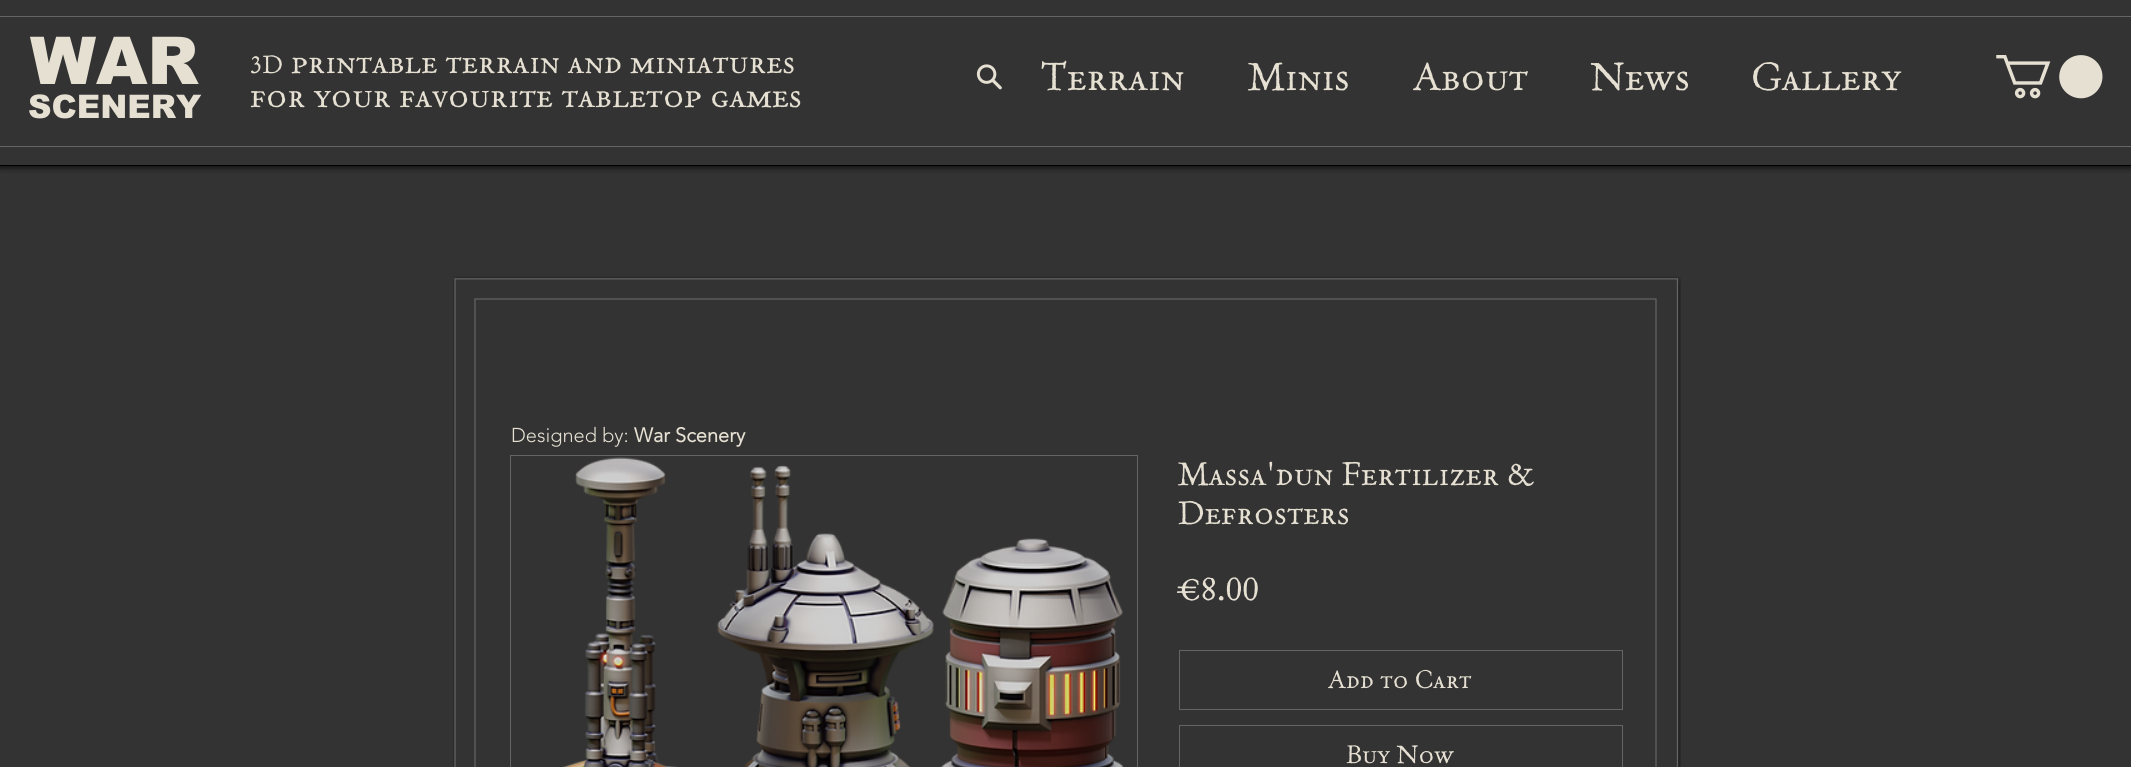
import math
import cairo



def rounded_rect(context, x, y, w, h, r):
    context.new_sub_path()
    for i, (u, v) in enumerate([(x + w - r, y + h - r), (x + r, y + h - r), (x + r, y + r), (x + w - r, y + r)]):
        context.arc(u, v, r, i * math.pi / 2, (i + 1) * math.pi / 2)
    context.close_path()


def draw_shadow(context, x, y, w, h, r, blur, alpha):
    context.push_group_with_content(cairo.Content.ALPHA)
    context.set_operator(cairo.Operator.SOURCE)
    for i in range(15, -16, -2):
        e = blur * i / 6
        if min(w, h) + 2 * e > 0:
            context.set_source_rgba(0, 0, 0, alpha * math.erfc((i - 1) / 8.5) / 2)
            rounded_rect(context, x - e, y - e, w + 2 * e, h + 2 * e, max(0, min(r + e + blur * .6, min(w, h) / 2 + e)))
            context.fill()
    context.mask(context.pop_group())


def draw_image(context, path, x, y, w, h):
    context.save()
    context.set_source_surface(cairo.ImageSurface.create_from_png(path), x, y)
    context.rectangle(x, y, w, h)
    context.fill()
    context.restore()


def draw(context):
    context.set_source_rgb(51 / 255, 51 / 255, 51 / 255)
    context.paint()
    context.set_source_rgb(0, 0, 0)
    draw_shadow(context, 0, 3, 2131, 165, 0, 3, 0.7)
    context.set_source_rgb(51 / 255, 51 / 255, 51 / 255)
    context.rectangle(0, 0, 2131, 165)
    context.fill()
    context.set_source_rgb(101 / 255, 101 / 255, 101 / 255)
    context.rectangle(0, 16, 2131, 1)
    context.fill()
    draw_image(context, "images/1.png", 976, 64, 26, 26)
    draw_image(context, "images/2.png", 1996, 55, 107, 44)
    context.rectangle(0, 146, 2131, 1)
    context.fill()
    context.set_source_rgb(0, 0, 0)
    context.rectangle(0, 165, 2131, 1)
    context.fill()
    draw_image(context, "images/3.png", 453, 276, 1228, 491)
    context.new_path()
    context.move_to(1656, 299)
    context.line_to(1656, 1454)
    context.line_to(475, 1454)
    context.line_to(475, 299)
    context.close_path()
    context.set_source_rgb(101 / 255, 101 / 255, 101 / 255)
    context.set_line_width(1.2)
    context.stroke()
    context.rectangle(510.5, 455.5, 627, 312)
    context.set_line_width(1)
    context.stroke()
    draw_image(context, "images/4.png", 562, 457, 562, 310)
    context.rectangle(1179.5, 650.5, 443, 59)
    context.stroke()
    context.rectangle(1179.5, 725.5, 443, 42)
    context.stroke()
    context.select_font_face("arial Black")
    context.set_font_size(66)
    context.set_source_rgb(230 / 255, 224 / 255, 211 / 255)
    context.move_to(30, 84)
    context.show_text("WAR")
    context.set_font_size(32.5)
    context.move_to(28, 118)
    context.show_text("SCENERY")
    context.select_font_face("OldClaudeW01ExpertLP")
    context.set_font_size(25)
    context.move_to(250, 73)
    context.show_text("3D")
    context.set_font_size(32.5)
    context.move_to(291, 73)
    context.show_text("printable terrain and miniatures")
    context.set_font_size(33.75)
    context.move_to(250, 107)
    context.show_text("for your favourite tabletop games")
    context.set_font_size(39)
    context.move_to(1041, 90)
    context.show_text("Terrain")
    context.move_to(1248, 90)
    context.show_text("Minis")
    context.move_to(1413, 90)
    context.show_text("About")
    context.move_to(1590, 90)
    context.show_text("News")
    context.move_to(1751, 90)
    context.show_text("Gallery")
    context.select_font_face("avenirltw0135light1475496 Light")
    context.set_font_size(20)
    context.move_to(511, 442)
    context.show_text("Designed by:")
    context.select_font_face("avenirltw0135light1475496", cairo.FontSlant.NORMAL, cairo.FontWeight.BOLD)
    context.move_to(634, 442)
    context.show_text("War Scenery")
    context.select_font_face("OldClaudeW01ExpertLP")
    context.set_font_size(32.5)
    context.move_to(1178, 485)
    context.show_text("Massa'dun Fertilizer &")
    context.move_to(1178, 524)
    context.show_text("Defrosters")
    context.set_font_size(33.75)
    context.move_to(1178, 600)
    context.show_text("€8.00")
    context.set_font_size(25)
    context.move_to(1328, 688)
    context.show_text("Add to Cart")
    context.move_to(1346, 763)
    context.show_text("Buy Now")


surface = cairo.ImageSurface(cairo.Format.RGB24, 2131, 767)
context = cairo.Context(surface)
options = cairo.FontOptions()
options.set_hint_metrics(cairo.HintMetrics.OFF)
options.set_hint_style(cairo.HintStyle.NONE)
context.set_font_options(options)
context.set_miter_limit(4)
draw(context)
surface.write_to_png("out.png")
